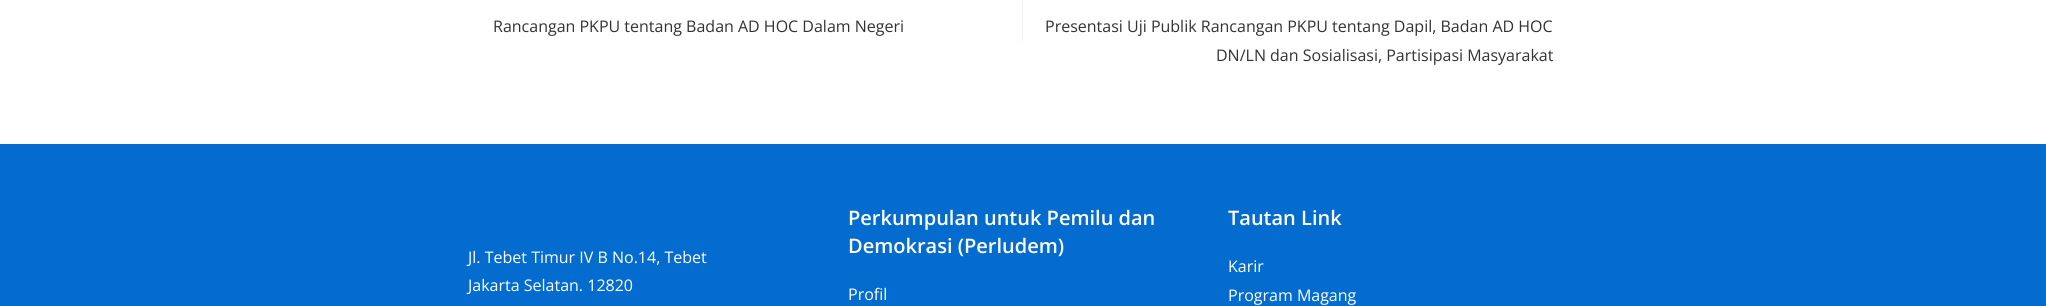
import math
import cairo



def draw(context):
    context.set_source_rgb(1, 1, 1)
    context.paint()
    context.set_source_rgb(241 / 255, 241 / 255, 241 / 255)
    context.rectangle(1022, 0, 1, 41)
    context.fill()
    context.set_source_rgb(5 / 255, 108 / 255, 207 / 255)
    context.rectangle(0, 144, 2046, 162)
    context.fill()
    context.select_font_face("Open Sans")
    context.set_font_size(16)
    context.set_source_rgb(51 / 255, 51 / 255, 51 / 255)
    context.move_to(493, 32)
    context.show_text("Rancangan PKPU tentang Badan AD HOC Dalam Negeri")
    context.move_to(1045, 32)
    context.show_text("Presentasi Uji Publik Rancangan PKPU tentang Dapil, Badan AD HOC")
    context.move_to(1216, 61)
    context.show_text("DN/LN dan Sosialisasi, Partisipasi Masyarakat")
    context.set_source_rgb(1, 1, 1)
    context.move_to(468, 263)
    context.show_text("Jl. Tebet Timur IV B No.14, Tebet")
    context.move_to(468, 291)
    context.show_text("Jakarta Selatan. 12820")
    context.select_font_face("Open Sans SemiBold")
    context.set_font_size(20)
    context.move_to(848, 225)
    context.show_text("Perkumpulan untuk Pemilu dan")
    context.move_to(848, 253)
    context.show_text("Demokrasi (Perludem)")
    context.select_font_face("Open Sans")
    context.set_font_size(16)
    context.move_to(848, 300)
    context.show_text("Profil")
    context.select_font_face("Open Sans SemiBold")
    context.set_font_size(20)
    context.move_to(1228, 225)
    context.show_text("Tautan Link")
    context.select_font_face("Open Sans")
    context.set_font_size(16)
    context.move_to(1228, 272)
    context.show_text("Karir")
    context.move_to(1228, 301)
    context.show_text("Program Magang")


surface = cairo.ImageSurface(cairo.Format.RGB24, 2046, 306)
context = cairo.Context(surface)
options = cairo.FontOptions()
options.set_hint_metrics(cairo.HintMetrics.OFF)
options.set_hint_style(cairo.HintStyle.NONE)
context.set_font_options(options)
context.set_miter_limit(4)
draw(context)
surface.write_to_png("out.png")
